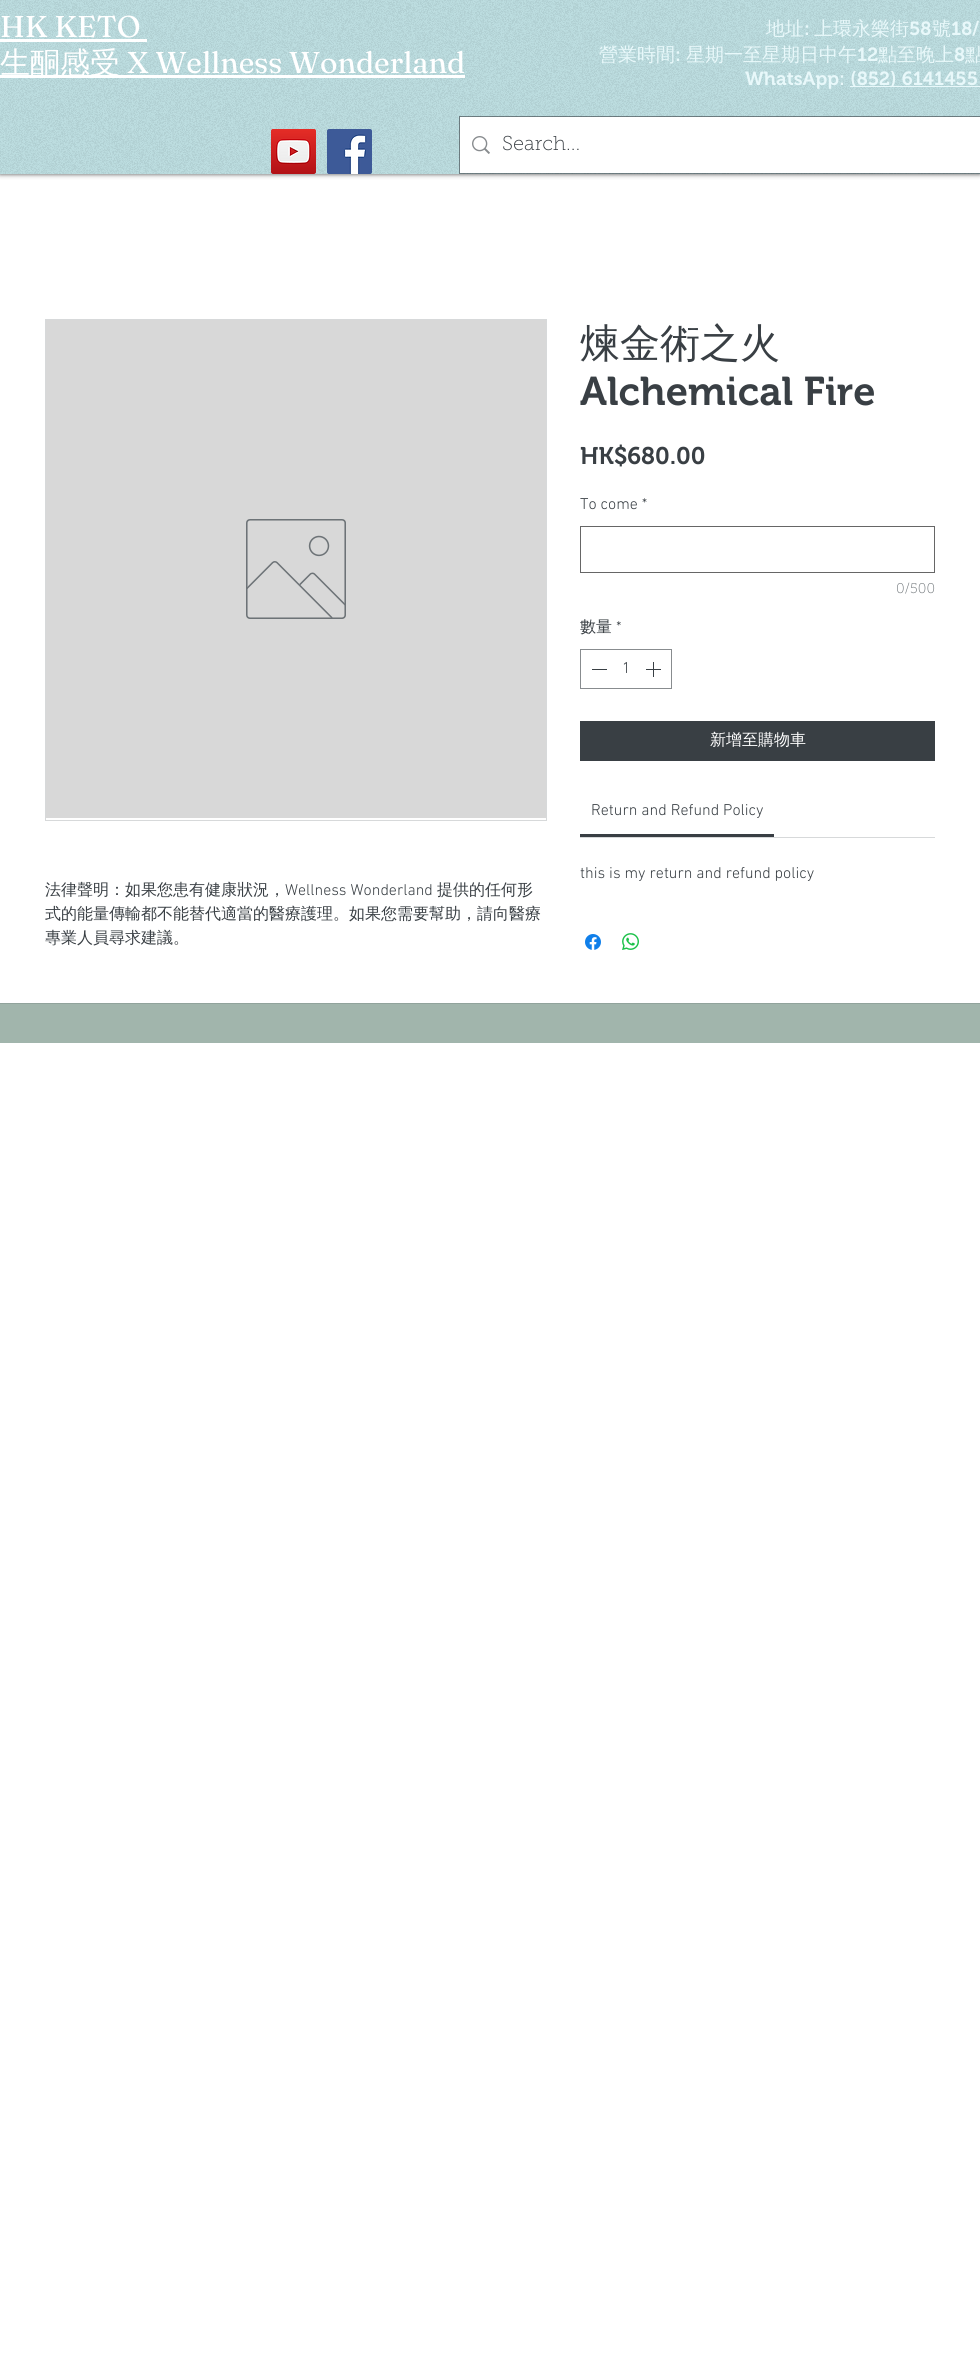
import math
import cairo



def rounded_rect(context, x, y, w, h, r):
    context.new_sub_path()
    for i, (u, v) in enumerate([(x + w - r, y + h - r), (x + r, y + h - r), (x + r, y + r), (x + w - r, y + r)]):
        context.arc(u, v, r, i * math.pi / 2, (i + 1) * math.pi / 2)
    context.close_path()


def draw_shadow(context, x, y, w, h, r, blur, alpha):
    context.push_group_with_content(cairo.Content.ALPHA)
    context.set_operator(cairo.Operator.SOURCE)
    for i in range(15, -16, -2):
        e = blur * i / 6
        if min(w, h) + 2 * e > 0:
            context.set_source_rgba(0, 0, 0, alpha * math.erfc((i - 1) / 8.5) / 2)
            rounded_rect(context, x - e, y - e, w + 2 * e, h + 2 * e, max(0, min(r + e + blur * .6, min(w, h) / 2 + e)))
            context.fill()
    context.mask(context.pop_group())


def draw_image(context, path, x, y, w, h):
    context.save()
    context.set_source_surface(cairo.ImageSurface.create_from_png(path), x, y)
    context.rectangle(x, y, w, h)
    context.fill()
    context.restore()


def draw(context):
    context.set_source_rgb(1, 1, 1)
    context.paint()
    context.set_source_rgb(0, 0, 0)
    draw_shadow(context, 0, 0, 980, 174, 0, 2.5, 0.7)
    context.set_source_rgb(188 / 255, 221 / 255, 224 / 255)
    context.rectangle(0, 0, 980, 174)
    context.fill()
    draw_image(context, "images/1.png", 0, 0, 980, 174)
    context.set_source_rgb(1, 1, 1)
    context.rectangle(0, 39, 147, 3)
    context.fill()
    context.rectangle(0, 75, 465, 3)
    context.fill()
    context.set_source_rgb(232 / 255, 248 / 255, 250 / 255)
    context.rectangle(850, 86, 130, 1)
    context.fill()
    draw_image(context, "images/2.png", 271, 129, 45, 45)
    draw_image(context, "images/3.png", 327, 129, 45, 45)
    context.rectangle(459.5, 116.5, 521, 57)
    context.set_source_rgba(57 / 255, 63 / 255, 68 / 255, 0.6)
    context.set_line_width(1)
    context.stroke()
    context.set_source_rgb(1, 1, 1)
    context.rectangle(460, 117, 520, 56)
    context.fill()
    draw_image(context, "images/4.png", 472, 136, 18, 18)
    context.rectangle(580.5, 526.5, 354, 46)
    context.set_source_rgb(102 / 255, 102 / 255, 102 / 255)
    context.stroke()
    context.rectangle(580.5, 649.5, 91, 39)
    context.set_source_rgb(136 / 255, 140 / 255, 143 / 255)
    context.stroke()
    context.set_source_rgb(57 / 255, 63 / 255, 68 / 255)
    context.rectangle(592, 669, 15, 1)
    context.fill()
    draw_image(context, "images/5.png", 646, 662, 15, 15)
    context.rectangle(580, 721, 355, 40)
    context.fill()
    context.set_source_rgb(215 / 255, 217 / 255, 218 / 255)
    context.rectangle(580, 837, 355, 1)
    context.fill()
    context.set_source_rgb(57 / 255, 63 / 255, 68 / 255)
    context.rectangle(580, 834, 194, 3)
    context.fill()
    draw_image(context, "images/6.png", 585, 934, 16, 16)
    draw_image(context, "images/7.png", 622, 933, 17, 17)
    context.rectangle(45.5, 319.5, 501, 501)
    context.set_source_rgb(215 / 255, 217 / 255, 218 / 255)
    context.stroke()
    context.set_source_rgb(216 / 255, 216 / 255, 216 / 255)
    context.rectangle(46, 320, 500, 498)
    context.fill()
    draw_image(context, "images/8.png", 246, 519, 100, 100)
    context.set_source_rgb(161 / 255, 181 / 255, 172 / 255)
    context.rectangle(0, 1004, 980, 39)
    context.fill()
    context.set_source_rgb(145 / 255, 163 / 255, 156 / 255)
    context.rectangle(0, 1003, 980, 1)
    context.fill()
    context.select_font_face("Fraunces")
    context.set_font_size(30)
    context.set_source_rgb(1, 1, 1)
    context.move_to(0, 37)
    context.show_text("HK KETO")
    context.select_font_face("WenQuanYi Zen Hei Medium")
    context.move_to(0, 73)
    context.show_text("生酮感受")
    context.select_font_face("Fraunces")
    context.move_to(127, 73)
    context.show_text("X Wellness Wonderland")
    context.select_font_face("WenQuanYi Zen Hei Medium")
    context.set_font_size(19)
    context.set_source_rgb(232 / 255, 248 / 255, 250 / 255)
    context.move_to(766, 35)
    context.show_text("地址")
    context.select_font_face("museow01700 SemiBold")
    context.move_to(804, 35)
    context.show_text(":")
    context.select_font_face("WenQuanYi Zen Hei Medium")
    context.move_to(814, 35)
    context.show_text("上環永樂街")
    context.select_font_face("museow01700 SemiBold")
    context.move_to(909, 35)
    context.show_text("58")
    context.select_font_face("WenQuanYi Zen Hei Medium")
    context.move_to(932, 35)
    context.show_text("號")
    context.select_font_face("museow01700 SemiBold")
    context.move_to(951, 35)
    context.show_text("18/")
    context.select_font_face("WenQuanYi Zen Hei Medium")
    context.move_to(599, 61)
    context.show_text("營業時間")
    context.select_font_face("museow01700 SemiBold")
    context.move_to(675, 61)
    context.show_text(":")
    context.select_font_face("WenQuanYi Zen Hei Medium")
    context.move_to(686, 61)
    context.show_text("星期一至星期日中午")
    context.select_font_face("museow01700 SemiBold")
    context.move_to(857, 61)
    context.show_text("12")
    context.select_font_face("WenQuanYi Zen Hei Medium")
    context.move_to(878, 61)
    context.show_text("點至晚上")
    context.select_font_face("museow01700 SemiBold")
    context.move_to(954, 61)
    context.show_text("8")
    context.select_font_face("WenQuanYi Zen Hei Medium")
    context.move_to(965, 61)
    context.show_text("點")
    context.select_font_face("museow01700 SemiBold")
    context.move_to(745, 85)
    context.show_text("WhatsApp:")
    context.move_to(850, 85)
    context.show_text("(852) 6141455")
    context.select_font_face("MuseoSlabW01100 Thin")
    context.set_font_size(20)
    context.set_source_rgb(57 / 255, 63 / 255, 68 / 255)
    context.move_to(502, 150)
    context.show_text("Search...")
    context.select_font_face("WenQuanYi Zen Hei Medium")
    context.set_font_size(40)
    context.move_to(580, 357)
    context.show_text("煉金術之火")
    context.select_font_face("museow01700 SemiBold")
    context.move_to(580, 405)
    context.show_text("Alchemical Fire")
    context.set_font_size(24)
    context.move_to(580, 464)
    context.show_text("HK$680.00")
    context.select_font_face("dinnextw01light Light")
    context.set_font_size(16)
    context.move_to(580, 509)
    context.show_text("To come *")
    context.select_font_face("MuseoSlabW01100 Thin")
    context.set_font_size(14)
    context.set_source_rgb(109 / 255, 115 / 255, 119 / 255)
    context.move_to(896, 593)
    context.show_text("0/500")
    context.select_font_face("WenQuanYi Zen Hei Medium")
    context.set_font_size(16)
    context.set_source_rgb(57 / 255, 63 / 255, 68 / 255)
    context.move_to(580, 632)
    context.show_text("數量")
    context.select_font_face("dinnextw01light Light")
    context.move_to(616, 632)
    context.show_text("*")
    context.move_to(622, 673)
    context.show_text("1")
    context.select_font_face("WenQuanYi Zen Hei Medium")
    context.set_source_rgb(1, 1, 1)
    context.move_to(710, 745)
    context.show_text("新增至購物車")
    context.select_font_face("dinnextw01light Light")
    context.set_source_rgb(57 / 255, 63 / 255, 68 / 255)
    context.move_to(591, 815)
    context.show_text("Return and Refund Policy")
    context.move_to(580, 878)
    context.show_text("this is my return and refund policy")
    context.select_font_face("WenQuanYi Zen Hei Medium")
    context.move_to(45, 895)
    context.show_text("法律聲明：如果您患有健康狀況，")
    context.select_font_face("dinnextw01light Light")
    context.move_to(285, 895)
    context.show_text("Wellness Wonderland")
    context.select_font_face("WenQuanYi Zen Hei Medium")
    context.move_to(437, 895)
    context.show_text("提供的任何形")
    context.move_to(45, 919)
    context.show_text("式的能量傳輸都不能替代適當的醫療護理。如果您需要幫助，請向醫療")
    context.move_to(45, 943)
    context.show_text("專業人員尋求建議。")


surface = cairo.ImageSurface(cairo.Format.RGB24, 980, 2380)
context = cairo.Context(surface)
options = cairo.FontOptions()
options.set_hint_metrics(cairo.HintMetrics.OFF)
options.set_hint_style(cairo.HintStyle.NONE)
context.set_font_options(options)
context.set_miter_limit(4)
draw(context)
surface.write_to_png("out.png")
